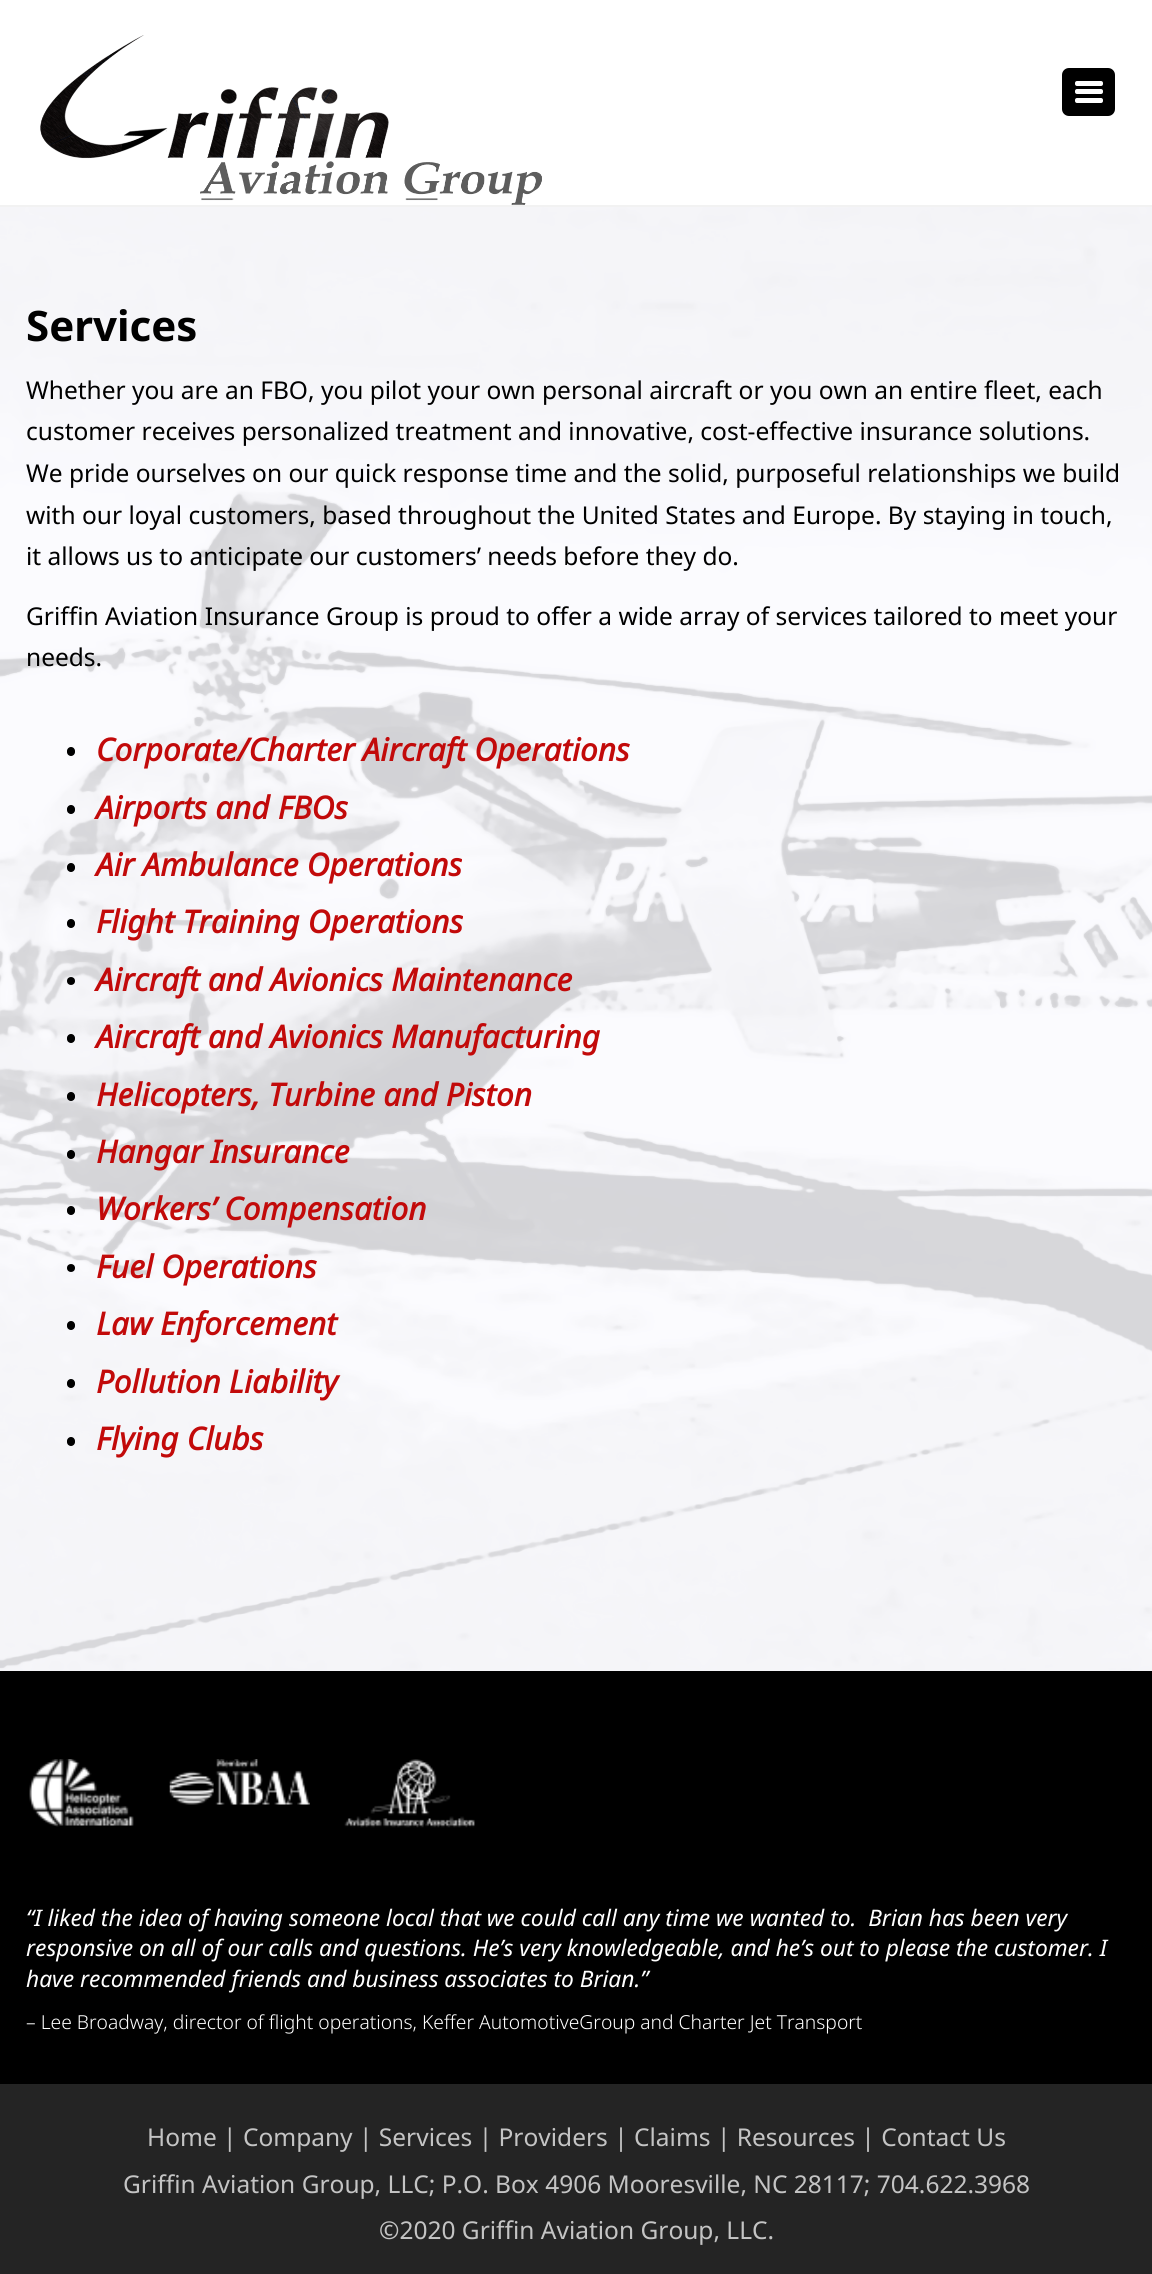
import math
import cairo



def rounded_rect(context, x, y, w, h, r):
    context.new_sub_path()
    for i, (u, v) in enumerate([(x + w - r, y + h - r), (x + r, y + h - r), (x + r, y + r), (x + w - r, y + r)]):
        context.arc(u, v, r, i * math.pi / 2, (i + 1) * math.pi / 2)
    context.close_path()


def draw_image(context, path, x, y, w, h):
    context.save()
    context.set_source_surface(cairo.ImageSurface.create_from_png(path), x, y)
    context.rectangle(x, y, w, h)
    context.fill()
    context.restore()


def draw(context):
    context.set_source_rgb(1, 1, 1)
    context.paint()
    context.set_source_rgb(242 / 255, 242 / 255, 242 / 255)
    context.rectangle(0, 205, 1152, 2)
    context.fill()
    draw_image(context, "images/1.png", 40, 35, 502, 170)
    context.set_source_rgb(0, 0, 0)
    rounded_rect(context, 1062, 68, 53, 48, 7)
    context.fill()
    context.set_source_rgb(1, 1, 1)
    rounded_rect(context, 1075, 81, 28, 5, 2)
    context.fill()
    rounded_rect(context, 1075, 89, 28, 5, 2)
    context.fill()
    rounded_rect(context, 1075, 98, 28, 5, 2)
    context.fill()
    draw_image(context, "images/2.png", 0, 207, 1152, 1464)
    context.set_source_rgb(0, 0, 0)
    rounded_rect(context, 67, 747, 8, 9, 4)
    context.fill()
    rounded_rect(context, 67, 805, 8, 9, 4)
    context.fill()
    rounded_rect(context, 67, 863, 8, 9, 4)
    context.fill()
    rounded_rect(context, 67, 919, 8, 9, 4)
    context.fill()
    context.arc(71, 981, 4, 0, 2 * math.pi)
    context.fill()
    rounded_rect(context, 67, 1034, 8, 9, 4)
    context.fill()
    rounded_rect(context, 67, 1092, 8, 9, 4)
    context.fill()
    rounded_rect(context, 67, 1150, 8, 9, 4)
    context.fill()
    rounded_rect(context, 67, 1206, 8, 9, 4)
    context.fill()
    context.arc(71, 1268, 4, 0, 2 * math.pi)
    context.fill()
    rounded_rect(context, 67, 1321, 8, 9, 4)
    context.fill()
    rounded_rect(context, 67, 1379, 8, 9, 4)
    context.fill()
    rounded_rect(context, 67, 1437, 8, 9, 4)
    context.fill()
    context.rectangle(0, 1671, 1152, 413)
    context.fill()
    draw_image(context, "images/3.png", 29, 1759, 105, 68)
    draw_image(context, "images/4.png", 169, 1759, 141, 46)
    draw_image(context, "images/5.png", 344, 1759, 131, 69)
    context.set_source_rgb(36 / 255, 36 / 255, 36 / 255)
    context.rectangle(0, 2084, 1152, 190)
    context.fill()
    context.select_font_face("Noto Sans", cairo.FontSlant.NORMAL, cairo.FontWeight.BOLD)
    context.set_font_size(42)
    context.set_source_rgb(0, 0, 0)
    context.move_to(26, 341)
    context.show_text("Services")
    context.select_font_face("Noto Sans")
    context.set_font_size(24.5)
    context.move_to(26, 399)
    context.show_text("Whether you are an FBO, you pilot your own personal aircraft or you own an entire fleet, each")
    context.move_to(26, 440)
    context.show_text("customer receives personalized treatment and innovative, cost-effective insurance solutions.")
    context.move_to(26, 482)
    context.show_text("We pride ourselves on our quick response time and the solid, purposeful relationships we build")
    context.move_to(26, 524)
    context.show_text("with our loyal customers, based throughout the United States and Europe. By staying in touch,")
    context.move_to(26, 565)
    context.show_text("it allows us to anticipate our customers’ needs before they do.")
    context.move_to(26, 625)
    context.show_text("Griffin Aviation Insurance Group is proud to offer a wide array of services tailored to meet your")
    context.move_to(26, 666)
    context.show_text("needs.")
    context.select_font_face("Noto Sans", cairo.FontSlant.ITALIC, cairo.FontWeight.BOLD)
    context.set_font_size(31.5)
    context.set_source_rgb(194 / 255, 10 / 255, 10 / 255)
    context.move_to(96, 761)
    context.show_text("Corporate/Charter Aircraft Operations")
    context.move_to(96, 819)
    context.show_text("Airports and FBOs")
    context.move_to(96, 876)
    context.show_text("Air Ambulance Operations")
    context.move_to(96, 933)
    context.show_text("Flight Training Operations")
    context.move_to(96, 991)
    context.show_text("Aircraft and Avionics Maintenance")
    context.move_to(96, 1048)
    context.show_text("Aircraft and Avionics Manufacturing")
    context.move_to(96, 1106)
    context.show_text("Helicopters, Turbine and Piston")
    context.move_to(96, 1163)
    context.show_text("Hangar Insurance")
    context.move_to(96, 1220)
    context.show_text("Workers’ Compensation")
    context.move_to(96, 1278)
    context.show_text("Fuel Operations")
    context.move_to(96, 1335)
    context.show_text("Law Enforcement")
    context.move_to(96, 1393)
    context.show_text("Pollution Liability")
    context.move_to(96, 1450)
    context.show_text("Flying Clubs")
    context.select_font_face("Noto Sans", cairo.FontSlant.ITALIC)
    context.set_font_size(22.75)
    context.set_source_rgb(1, 1, 1)
    context.move_to(26, 1926)
    context.show_text("“I liked the idea of having someone local that we could call any time we wanted to.  Brian has been very")
    context.move_to(26, 1956)
    context.show_text("responsive on all of our calls and questions. He’s very knowledgeable, and he’s out to please the customer. I")
    context.move_to(26, 1987)
    context.show_text("have recommended friends and business associates to Brian.”")
    context.select_font_face("Noto Sans Light")
    context.set_font_size(19.25)
    context.move_to(26, 2029)
    context.show_text("– Lee Broadway, director of flight operations, Keffer AutomotiveGroup and Charter Jet Transport")
    context.select_font_face("Noto Sans")
    context.set_font_size(24.5)
    context.set_source_rgb(196 / 255, 196 / 255, 196 / 255)
    context.move_to(147, 2146)
    context.show_text("Home | Company | Services | Providers | Claims | Resources | Contact Us")
    context.move_to(123, 2193)
    context.show_text("Griffin Aviation Group, LLC; P.O. Box 4906 Mooresville, NC 28117; 704.622.3968")
    context.move_to(379, 2239)
    context.show_text("©2020 Griffin Aviation Group, LLC.")


surface = cairo.ImageSurface(cairo.Format.RGB24, 1152, 2274)
context = cairo.Context(surface)
options = cairo.FontOptions()
options.set_hint_metrics(cairo.HintMetrics.OFF)
options.set_hint_style(cairo.HintStyle.NONE)
context.set_font_options(options)
context.set_miter_limit(4)
draw(context)
surface.write_to_png("out.png")
